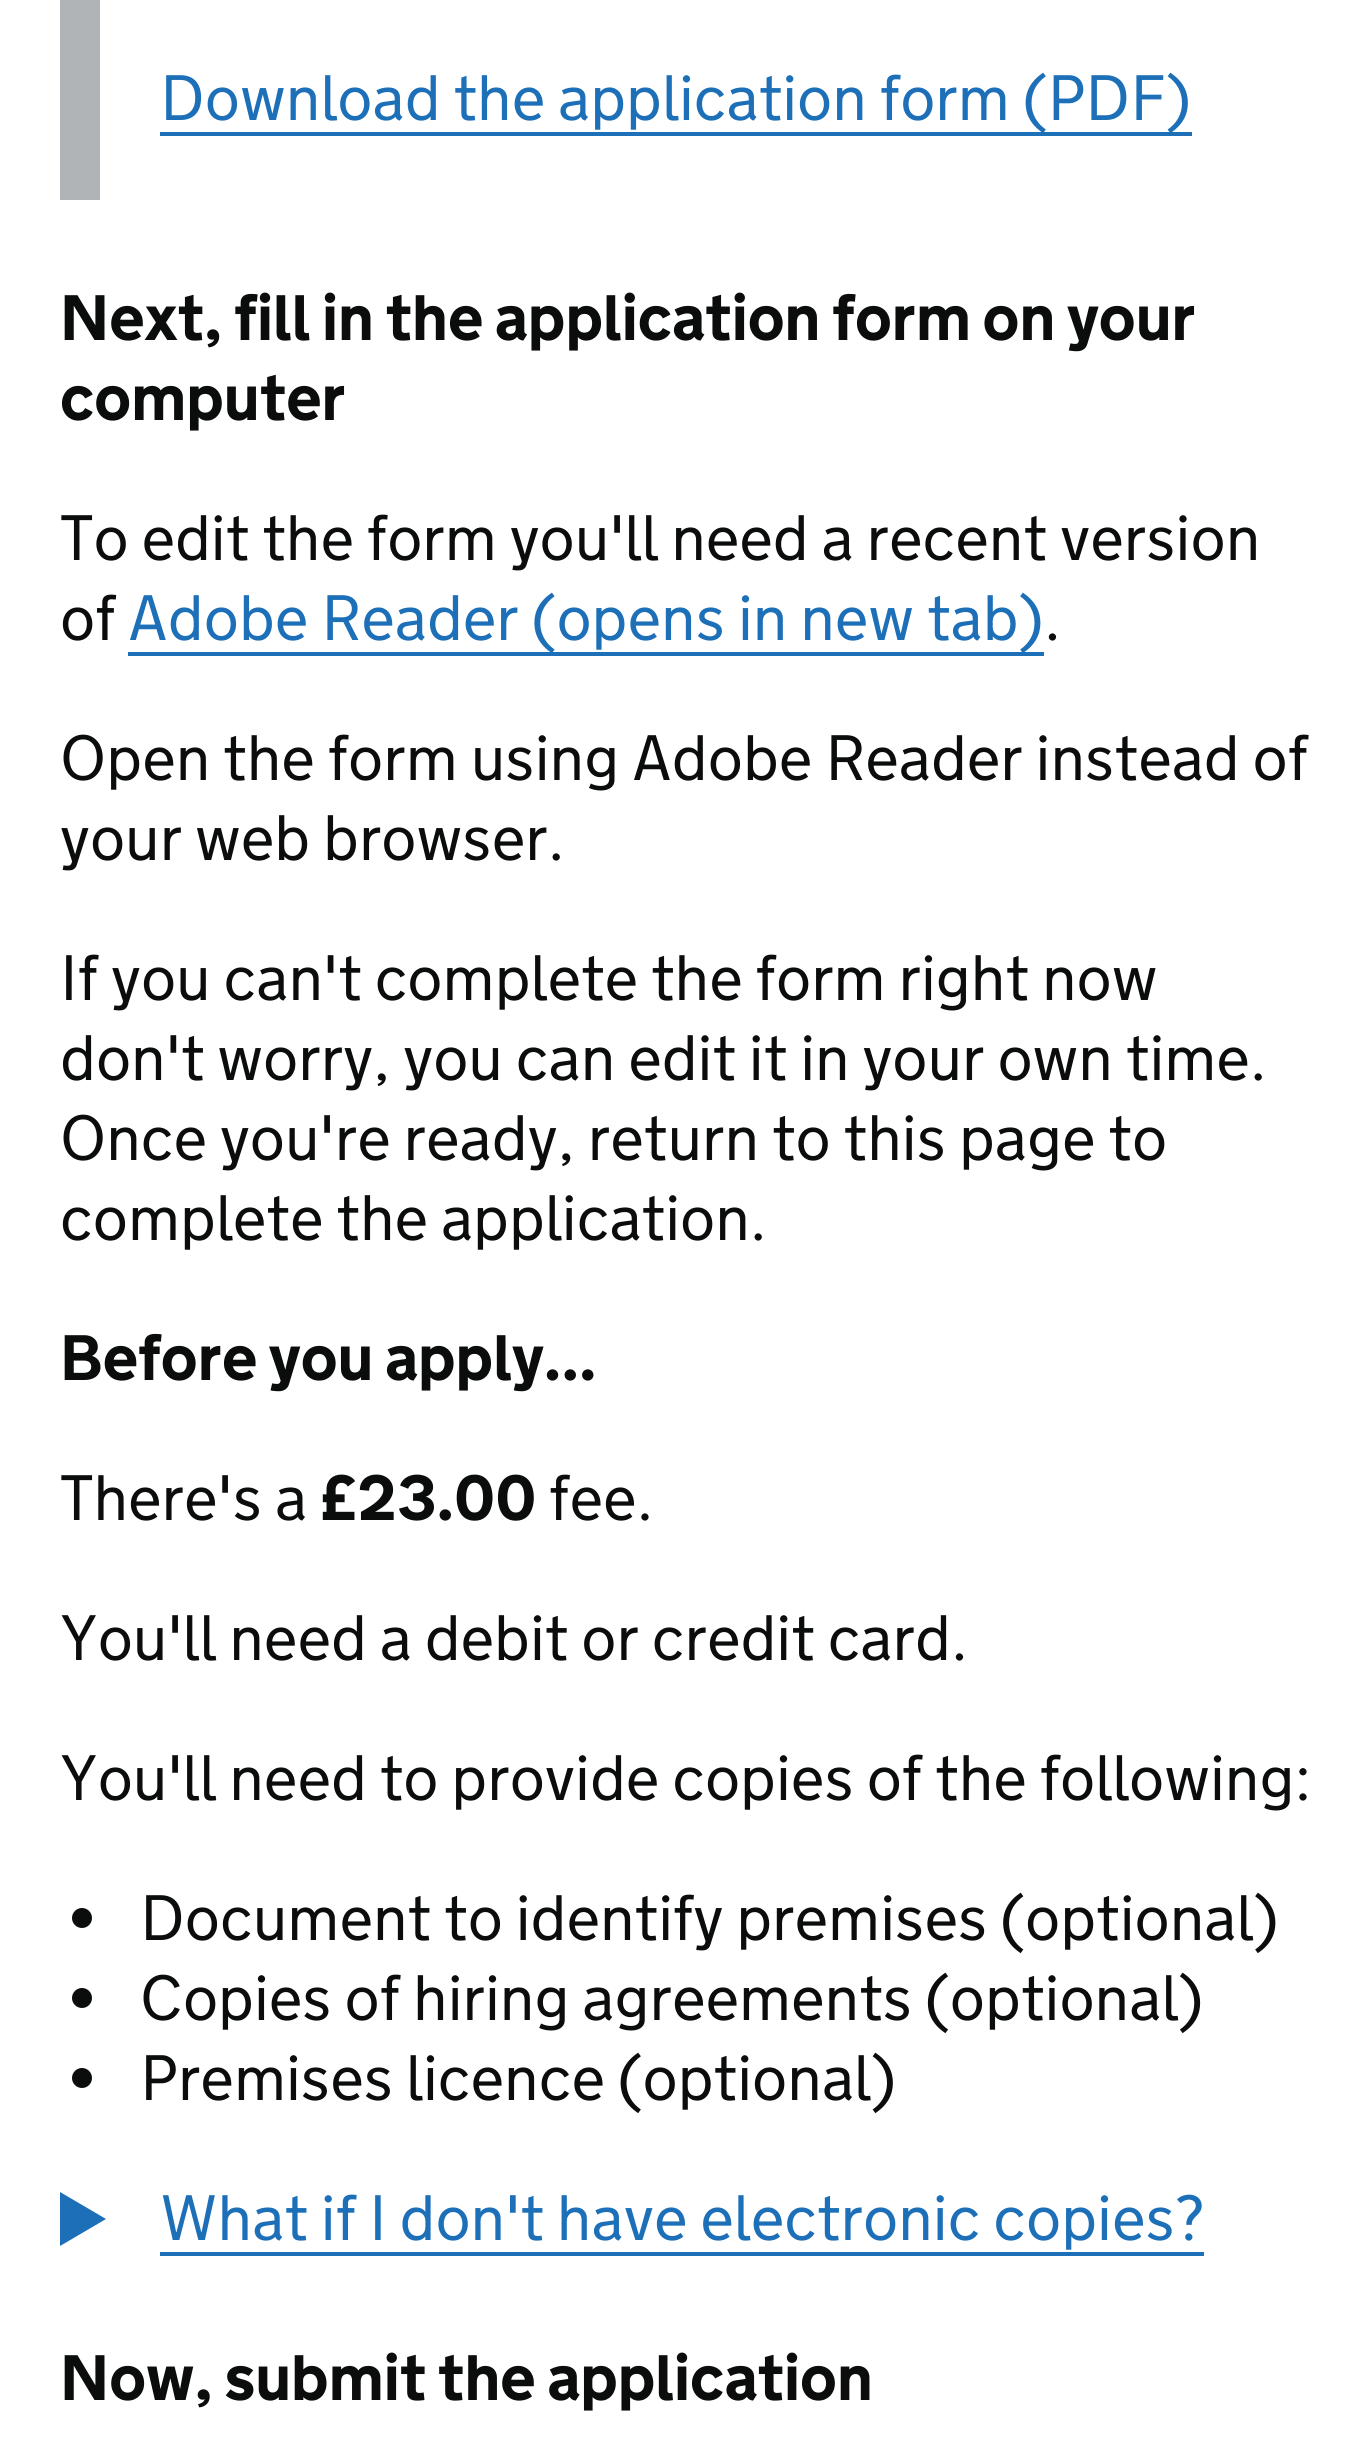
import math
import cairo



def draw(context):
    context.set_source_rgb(1, 1, 1)
    context.paint()
    context.set_source_rgb(177 / 255, 180 / 255, 182 / 255)
    context.rectangle(60, 0, 40, 200)
    context.fill()
    context.set_source_rgb(29 / 255, 112 / 255, 184 / 255)
    context.rectangle(160, 132, 1032, 4)
    context.fill()
    context.rectangle(128, 652, 916, 4)
    context.fill()
    context.set_source_rgb(11 / 255, 12 / 255, 12 / 255)
    context.arc(82, 1918, 10, 0, 2 * math.pi)
    context.fill()
    context.arc(82, 1998, 10, 0, 2 * math.pi)
    context.fill()
    context.arc(82, 2078, 10, 0, 2 * math.pi)
    context.fill()
    context.set_source_rgb(29 / 255, 112 / 255, 184 / 255)
    context.new_path()
    context.move_to(60, 2192)
    context.line_to(60, 2246)
    context.line_to(106, 2219)
    context.close_path()
    context.fill()
    context.rectangle(160, 2252, 1044, 4)
    context.fill()
    context.select_font_face("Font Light")
    context.set_font_size(64)
    context.move_to(160, 120)
    context.show_text("Download the application form (PDF)")
    context.select_font_face("Font", cairo.FontSlant.NORMAL, cairo.FontWeight.BOLD)
    context.set_source_rgb(11 / 255, 12 / 255, 12 / 255)
    context.move_to(60, 340)
    context.show_text("Next, fill in the application form on your")
    context.move_to(60, 420)
    context.show_text("computer")
    context.select_font_face("Font Light")
    context.move_to(60, 560)
    context.show_text("To edit the form you'll need a recent version")
    context.move_to(60, 640)
    context.show_text("of")
    context.set_source_rgb(29 / 255, 112 / 255, 184 / 255)
    context.move_to(128, 640)
    context.show_text("Adobe Reader (opens in new tab)")
    context.set_source_rgb(11 / 255, 12 / 255, 12 / 255)
    context.move_to(1044, 640)
    context.show_text(".")
    context.move_to(60, 780)
    context.show_text("Open the form using Adobe Reader instead of")
    context.move_to(60, 860)
    context.show_text("your web browser.")
    context.move_to(60, 1000)
    context.show_text("If you can't complete the form right now")
    context.move_to(60, 1080)
    context.show_text("don't worry, you can edit it in your own time.")
    context.move_to(60, 1160)
    context.show_text("Once you're ready, return to this page to")
    context.move_to(60, 1240)
    context.show_text("complete the application.")
    context.select_font_face("Font", cairo.FontSlant.NORMAL, cairo.FontWeight.BOLD)
    context.move_to(60, 1380)
    context.show_text("Before you apply...")
    context.select_font_face("Font Light")
    context.move_to(60, 1520)
    context.show_text("There's a")
    context.select_font_face("Font", cairo.FontSlant.NORMAL, cairo.FontWeight.BOLD)
    context.move_to(320, 1520)
    context.show_text("£23.00")
    context.select_font_face("Font Light")
    context.move_to(549, 1520)
    context.show_text("fee.")
    context.move_to(60, 1660)
    context.show_text("You'll need a debit or credit card.")
    context.move_to(60, 1800)
    context.show_text("You'll need to provide copies of the following:")
    context.move_to(140, 1940)
    context.show_text("Document to identify premises (optional)")
    context.move_to(140, 2020)
    context.show_text("Copies of hiring agreements (optional)")
    context.move_to(140, 2100)
    context.show_text("Premises licence (optional)")
    context.set_source_rgb(29 / 255, 112 / 255, 184 / 255)
    context.move_to(160, 2240)
    context.show_text("What if I don't have electronic copies?")
    context.select_font_face("Font", cairo.FontSlant.NORMAL, cairo.FontWeight.BOLD)
    context.set_source_rgb(11 / 255, 12 / 255, 12 / 255)
    context.move_to(60, 2400)
    context.show_text("Now, submit the application")


surface = cairo.ImageSurface(cairo.Format.RGB24, 1370, 2448)
context = cairo.Context(surface)
options = cairo.FontOptions()
options.set_hint_metrics(cairo.HintMetrics.OFF)
options.set_hint_style(cairo.HintStyle.NONE)
context.set_font_options(options)
context.set_miter_limit(4)
draw(context)
surface.write_to_png("out.png")
